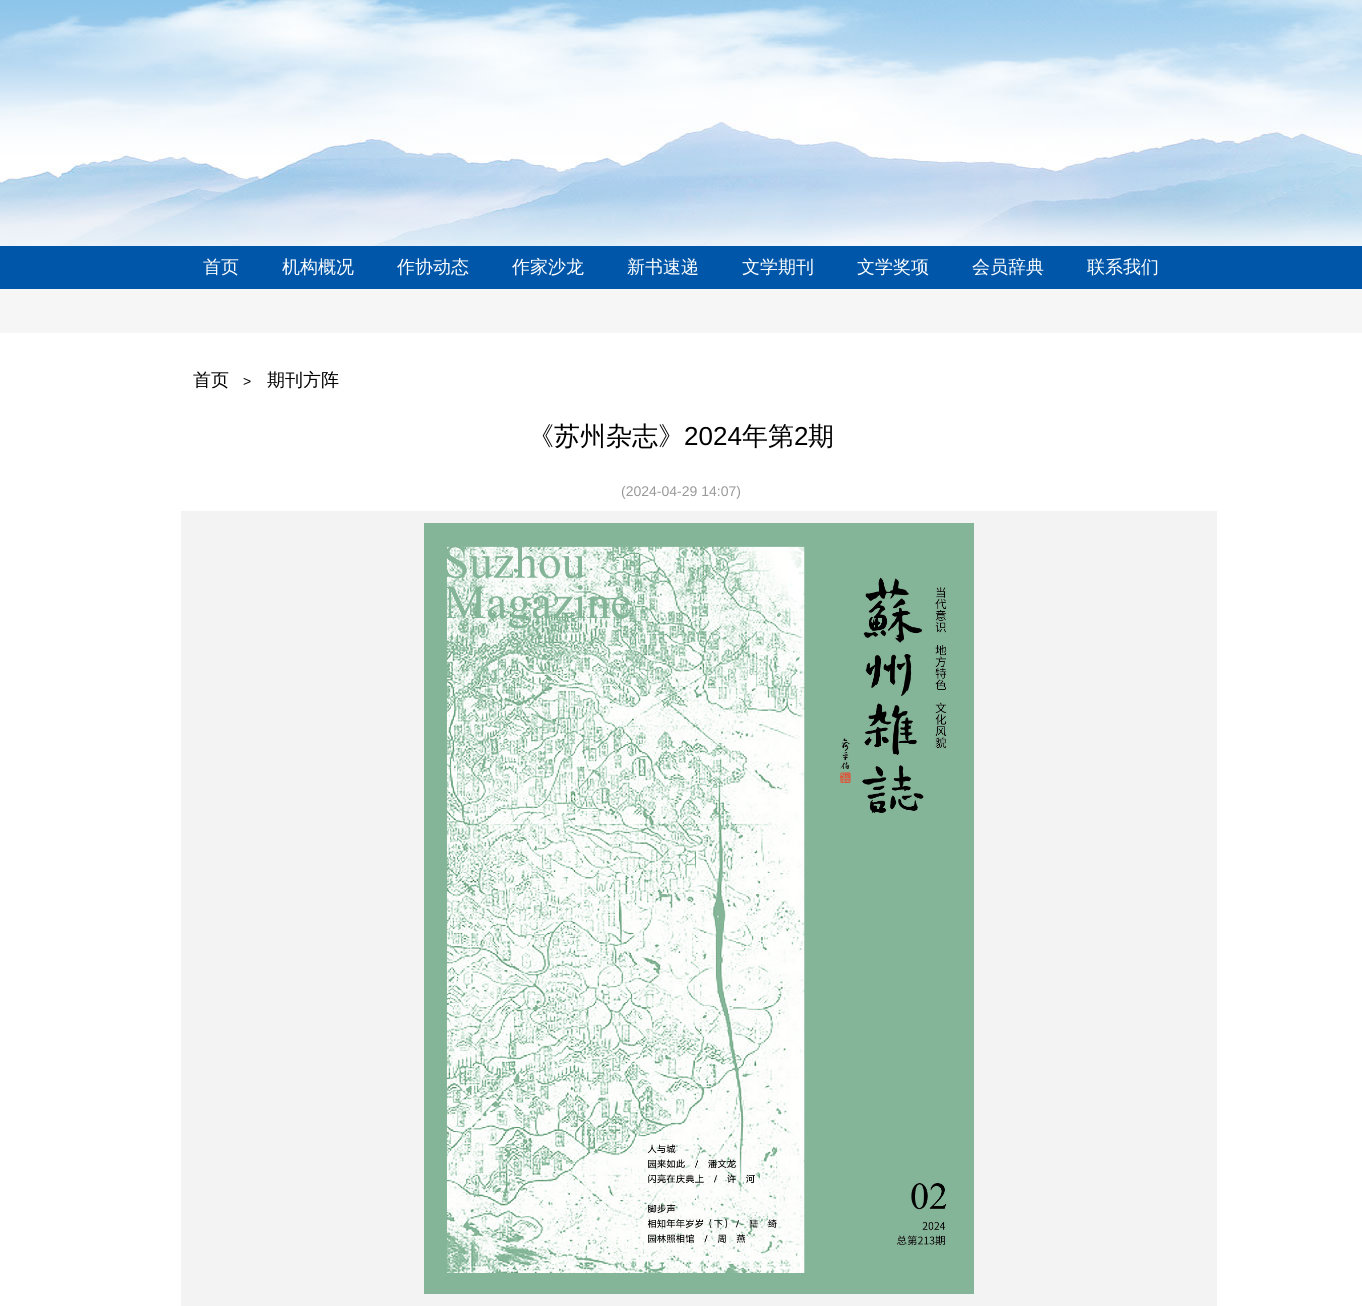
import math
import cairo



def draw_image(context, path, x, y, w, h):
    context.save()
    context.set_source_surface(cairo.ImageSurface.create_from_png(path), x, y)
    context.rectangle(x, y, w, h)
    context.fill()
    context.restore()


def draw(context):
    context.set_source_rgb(1, 1, 1)
    context.paint()
    context.set_source_rgb(0, 87 / 255, 169 / 255)
    context.rectangle(0, 246, 1362, 43)
    context.fill()
    draw_image(context, "images/1.png", 0, 0, 1362, 246)
    context.set_source_rgb(246 / 255, 246 / 255, 246 / 255)
    context.rectangle(0, 289, 1362, 44)
    context.fill()
    context.set_source_rgb(243 / 255, 243 / 255, 243 / 255)
    context.rectangle(181, 511, 1036, 795)
    context.fill()
    draw_image(context, "images/2.png", 424, 523, 550, 771)
    context.select_font_face("WenQuanYi Zen Hei Medium")
    context.set_font_size(18)
    context.set_source_rgb(1, 1, 1)
    context.move_to(203, 273)
    context.show_text("首页")
    context.move_to(282, 273)
    context.show_text("机构概况")
    context.move_to(397, 273)
    context.show_text("作协动态")
    context.move_to(512, 273)
    context.show_text("作家沙龙")
    context.move_to(627, 273)
    context.show_text("新书速递")
    context.move_to(742, 273)
    context.show_text("文学期刊")
    context.move_to(857, 273)
    context.show_text("文学奖项")
    context.move_to(972, 273)
    context.show_text("会员辞典")
    context.move_to(1087, 273)
    context.show_text("联系我们")
    context.set_source_rgb(0, 0, 0)
    context.move_to(193, 386)
    context.show_text("首页")
    context.select_font_face("Liberation Sans")
    context.set_font_size(14)
    context.move_to(243, 386)
    context.show_text(">")
    context.select_font_face("WenQuanYi Zen Hei Medium")
    context.set_font_size(18)
    context.move_to(267, 386)
    context.show_text("期刊方阵")
    context.set_font_size(26)
    context.move_to(528, 445)
    context.show_text("《苏州杂志》")
    context.select_font_face("Liberation Sans")
    context.move_to(684, 445)
    context.show_text("2024")
    context.select_font_face("WenQuanYi Zen Hei Medium")
    context.move_to(742, 445)
    context.show_text("年第")
    context.select_font_face("Liberation Sans")
    context.move_to(794, 445)
    context.show_text("2")
    context.select_font_face("WenQuanYi Zen Hei Medium")
    context.move_to(808, 445)
    context.show_text("期")
    context.select_font_face("Liberation Sans")
    context.set_font_size(14)
    context.set_source_rgb(153 / 255, 153 / 255, 153 / 255)
    context.move_to(621, 496)
    context.show_text("(2024-04-29 14:07)")


surface = cairo.ImageSurface(cairo.Format.RGB24, 1362, 1306)
context = cairo.Context(surface)
options = cairo.FontOptions()
options.set_hint_metrics(cairo.HintMetrics.OFF)
options.set_hint_style(cairo.HintStyle.NONE)
context.set_font_options(options)
context.set_miter_limit(4)
draw(context)
surface.write_to_png("out.png")
